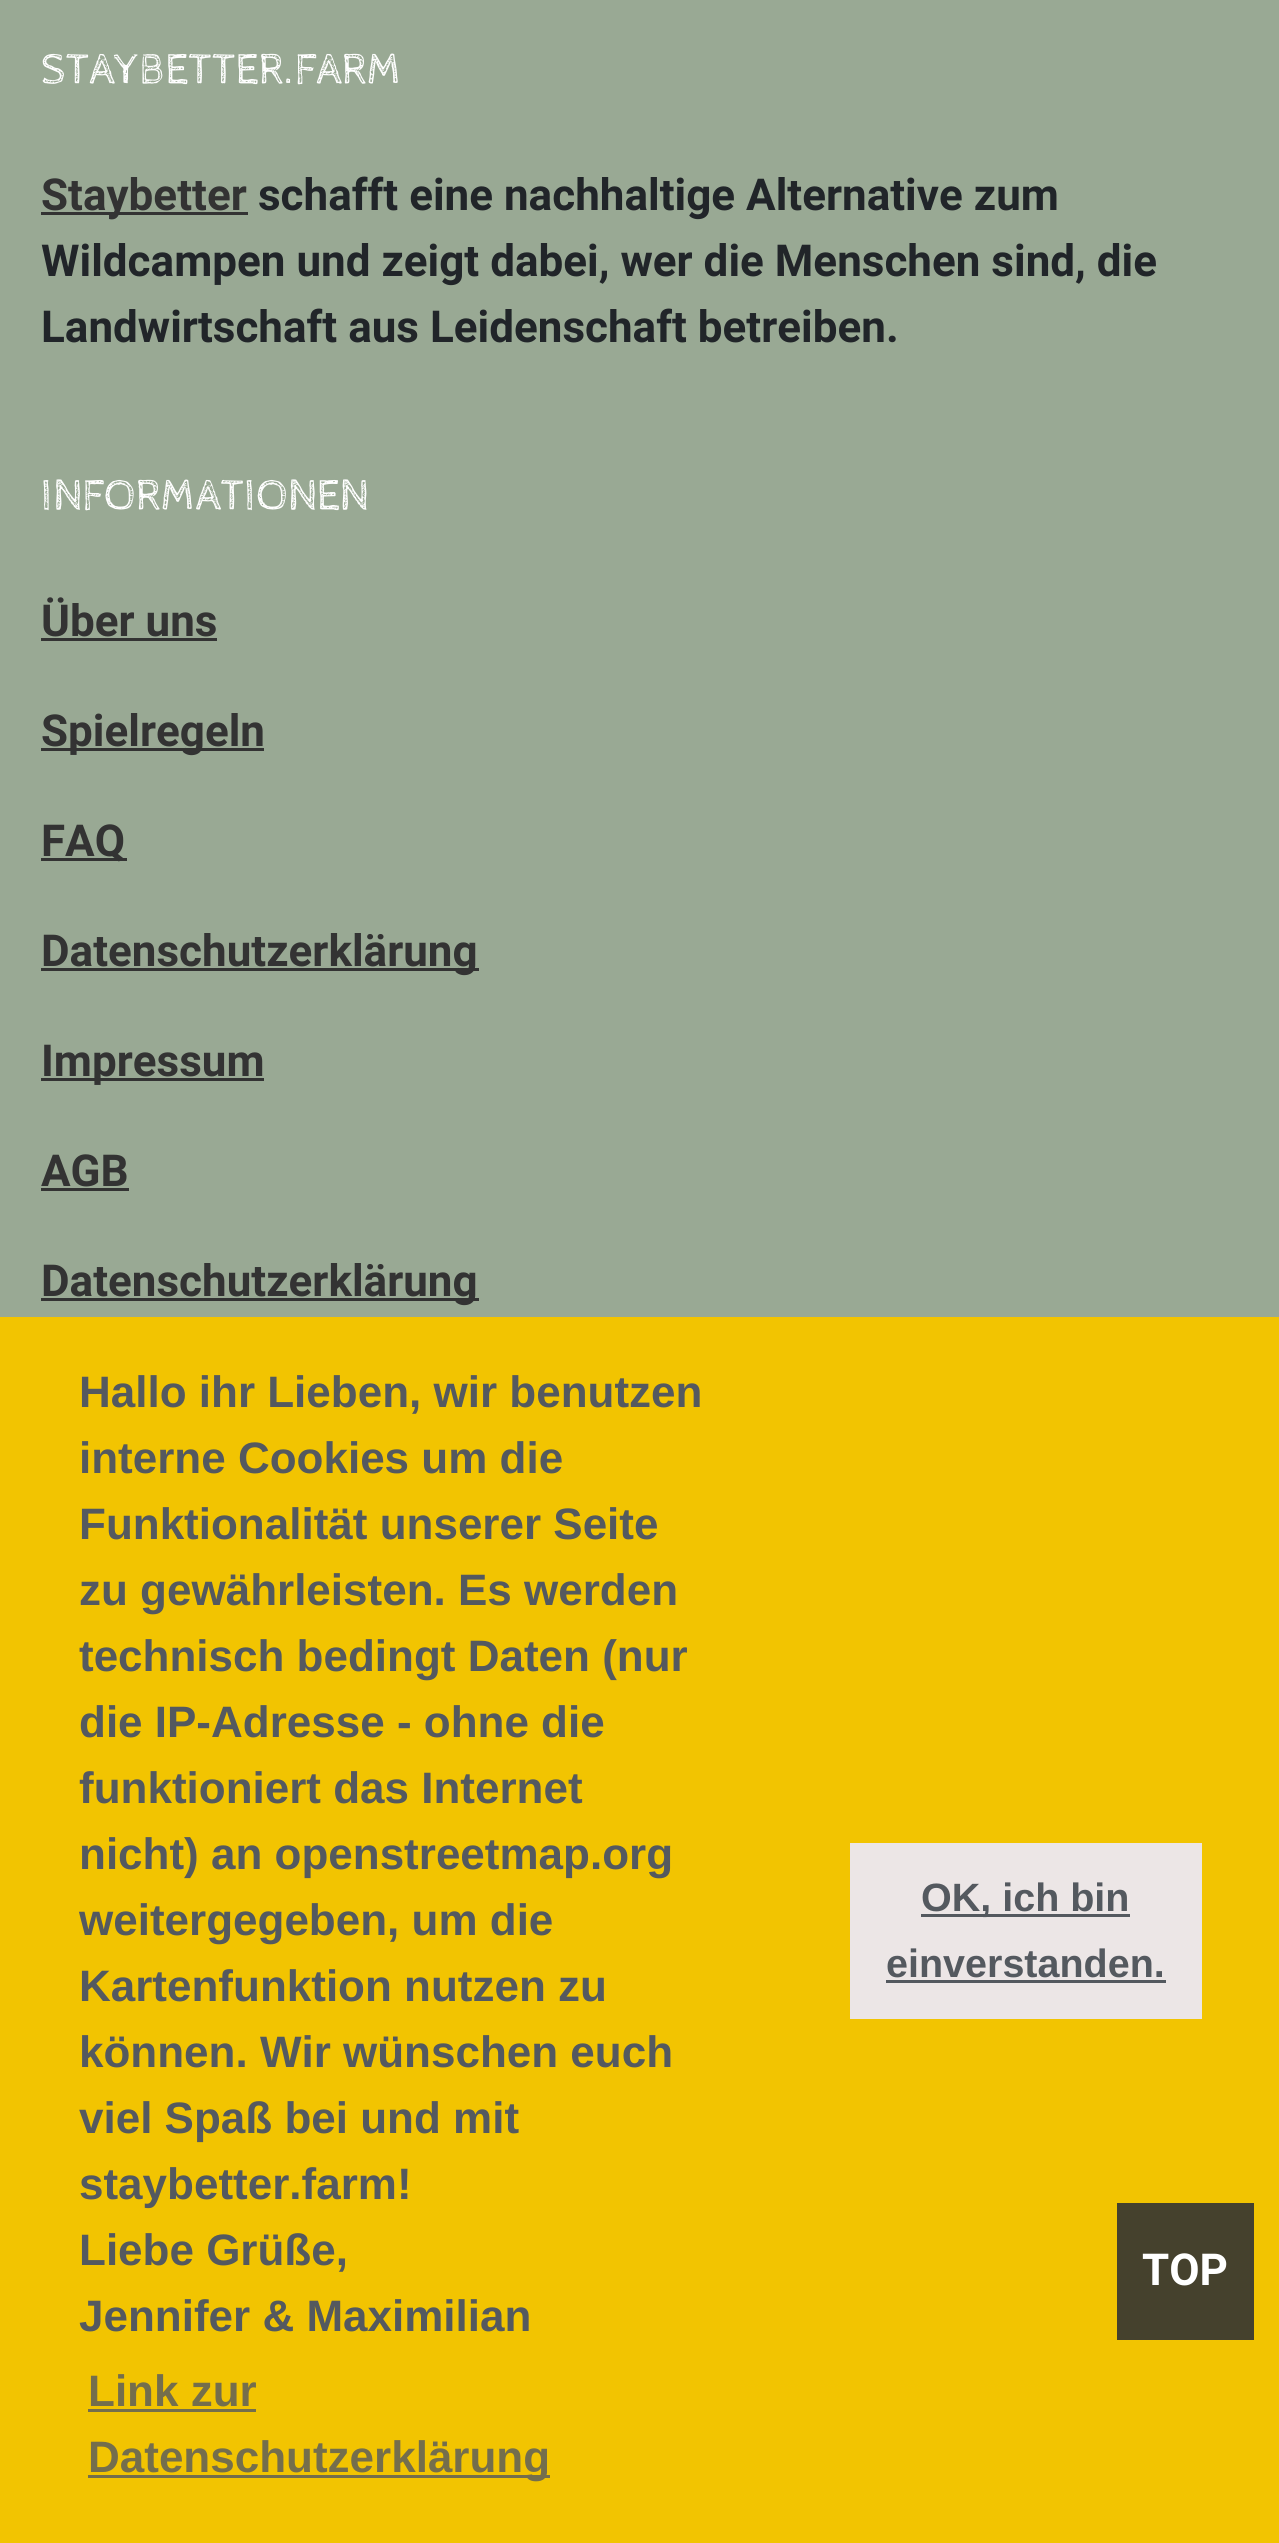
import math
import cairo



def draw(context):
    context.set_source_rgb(153 / 255, 169 / 255, 148 / 255)
    context.paint()
    context.set_source_rgb(51 / 255, 51 / 255, 51 / 255)
    context.rectangle(41, 212, 207, 3)
    context.fill()
    context.rectangle(41, 638, 176, 3)
    context.fill()
    context.rectangle(41, 748, 223, 3)
    context.fill()
    context.rectangle(41, 858, 86, 3)
    context.fill()
    context.rectangle(41, 968, 438, 3)
    context.fill()
    context.rectangle(41, 1078, 223, 3)
    context.fill()
    context.rectangle(41, 1188, 88, 3)
    context.fill()
    context.rectangle(41, 1298, 438, 3)
    context.fill()
    context.set_source_rgb(242 / 255, 196 / 255, 1 / 255)
    context.rectangle(0, 1317, 1279, 1226)
    context.fill()
    context.set_source_rgb(116 / 255, 110 / 255, 76 / 255)
    context.rectangle(88, 2409, 168, 3)
    context.fill()
    context.rectangle(88, 2475, 462, 3)
    context.fill()
    context.set_source_rgb(236 / 255, 230 / 255, 230 / 255)
    context.rectangle(850, 1843, 352, 176)
    context.fill()
    context.set_source_rgb(84 / 255, 89 / 255, 95 / 255)
    context.rectangle(921, 1914, 209, 3)
    context.fill()
    context.rectangle(886, 1980, 280, 3)
    context.fill()
    context.set_source_rgb(69 / 255, 65 / 255, 45 / 255)
    context.rectangle(1117, 2203, 137, 137)
    context.fill()
    context.select_font_face("Cabin Sketch")
    context.set_font_size(44)
    context.set_source_rgb(1, 1, 1)
    context.move_to(41, 83)
    context.show_text("STAYBETTER.FARM")
    context.select_font_face("Roboto", cairo.FontSlant.NORMAL, cairo.FontWeight.BOLD)
    context.set_source_rgb(51 / 255, 51 / 255, 51 / 255)
    context.move_to(41, 210)
    context.show_text("Staybetter")
    context.set_source_rgb(33 / 255, 37 / 255, 41 / 255)
    context.move_to(258, 210)
    context.show_text("schafft eine nachhaltige Alternative zum")
    context.move_to(41, 276)
    context.show_text("Wildcampen und zeigt dabei, wer die Menschen sind, die")
    context.move_to(41, 342)
    context.show_text("Landwirtschaft aus Leidenschaft betreiben.")
    context.select_font_face("Cabin Sketch")
    context.set_source_rgb(1, 1, 1)
    context.move_to(41, 509)
    context.show_text("INFORMATIONEN")
    context.select_font_face("Roboto", cairo.FontSlant.NORMAL, cairo.FontWeight.BOLD)
    context.set_source_rgb(51 / 255, 51 / 255, 51 / 255)
    context.move_to(41, 636)
    context.show_text("Über uns")
    context.move_to(41, 746)
    context.show_text("Spielregeln")
    context.move_to(41, 856)
    context.show_text("FAQ")
    context.move_to(41, 966)
    context.show_text("Datenschutzerklärung")
    context.move_to(41, 1076)
    context.show_text("Impressum")
    context.move_to(41, 1186)
    context.show_text("AGB")
    context.move_to(41, 1296)
    context.show_text("Datenschutzerklärung")
    context.select_font_face("Liberation Sans", cairo.FontSlant.NORMAL, cairo.FontWeight.BOLD)
    context.set_source_rgb(84 / 255, 89 / 255, 95 / 255)
    context.move_to(79, 1407)
    context.show_text("Hallo ihr Lieben, wir benutzen")
    context.move_to(79, 1473)
    context.show_text("interne Cookies um die")
    context.move_to(79, 1539)
    context.show_text("Funktionalität unserer Seite")
    context.move_to(79, 1605)
    context.show_text("zu gewährleisten. Es werden")
    context.move_to(79, 1671)
    context.show_text("technisch bedingt Daten (nur")
    context.move_to(79, 1737)
    context.show_text("die IP-Adresse - ohne die")
    context.move_to(79, 1803)
    context.show_text("funktioniert das Internet")
    context.move_to(79, 1869)
    context.show_text("nicht) an openstreetmap.org")
    context.move_to(79, 1935)
    context.show_text("weitergegeben, um die")
    context.move_to(79, 2001)
    context.show_text("Kartenfunktion nutzen zu")
    context.move_to(79, 2067)
    context.show_text("können. Wir wünschen euch")
    context.move_to(79, 2133)
    context.show_text("viel Spaß bei und mit")
    context.move_to(79, 2199)
    context.show_text("staybetter.farm!")
    context.move_to(79, 2265)
    context.show_text("Liebe Grüße,")
    context.move_to(79, 2331)
    context.show_text("Jennifer & Maximilian")
    context.set_source_rgb(116 / 255, 110 / 255, 76 / 255)
    context.move_to(88, 2406)
    context.show_text("Link zur")
    context.move_to(88, 2472)
    context.show_text("Datenschutzerklärung")
    context.set_font_size(39.5)
    context.set_source_rgb(84 / 255, 89 / 255, 95 / 255)
    context.move_to(921, 1911)
    context.show_text("OK, ich bin")
    context.move_to(886, 1977)
    context.show_text("einverstanden.")
    context.select_font_face("Roboto", cairo.FontSlant.NORMAL, cairo.FontWeight.BOLD)
    context.set_font_size(44)
    context.set_source_rgb(1, 1, 1)
    context.move_to(1142, 2285)
    context.show_text("TOP")


surface = cairo.ImageSurface(cairo.Format.RGB24, 1279, 2543)
context = cairo.Context(surface)
options = cairo.FontOptions()
options.set_hint_metrics(cairo.HintMetrics.OFF)
options.set_hint_style(cairo.HintStyle.NONE)
context.set_font_options(options)
context.set_miter_limit(4)
draw(context)
surface.write_to_png("out.png")
